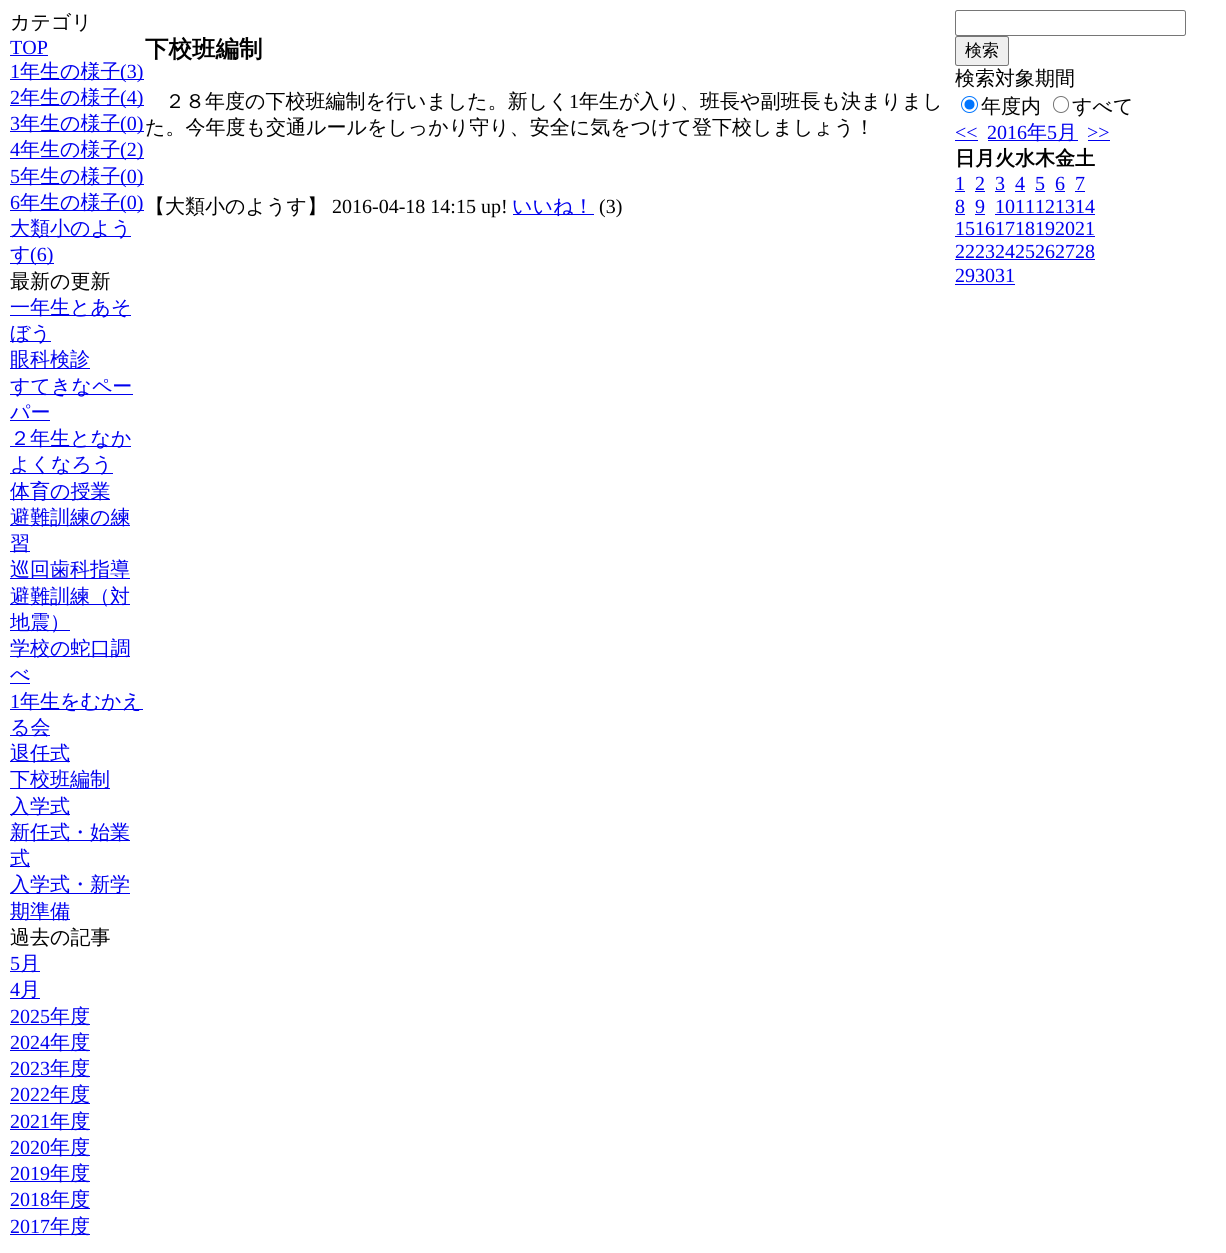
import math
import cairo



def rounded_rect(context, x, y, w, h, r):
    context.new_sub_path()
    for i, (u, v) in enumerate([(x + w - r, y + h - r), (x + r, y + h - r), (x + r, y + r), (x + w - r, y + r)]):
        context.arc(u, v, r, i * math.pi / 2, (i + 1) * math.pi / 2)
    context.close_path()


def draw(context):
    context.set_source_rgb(1, 1, 1)
    context.paint()
    context.set_source_rgb(0, 0, 238 / 255)
    context.rectangle(10, 55, 38, 1)
    context.fill()
    context.rectangle(10, 79, 134, 1)
    context.fill()
    context.rectangle(10, 105, 134, 1)
    context.fill()
    context.rectangle(10, 131, 134, 1)
    context.fill()
    context.rectangle(10, 158, 134, 1)
    context.fill()
    context.rectangle(10, 184, 134, 1)
    context.fill()
    context.rectangle(10, 210, 134, 1)
    context.fill()
    context.rectangle(10, 236, 121, 1)
    context.fill()
    context.rectangle(10, 263, 44, 1)
    context.fill()
    context.rectangle(10, 315, 121, 1)
    context.fill()
    context.rectangle(10, 341, 41, 1)
    context.fill()
    context.rectangle(10, 368, 80, 1)
    context.fill()
    context.rectangle(10, 394, 123, 1)
    context.fill()
    context.rectangle(10, 420, 40, 1)
    context.fill()
    context.rectangle(10, 446, 121, 1)
    context.fill()
    context.rectangle(10, 473, 103, 1)
    context.fill()
    context.rectangle(10, 499, 100, 1)
    context.fill()
    context.rectangle(10, 525, 120, 1)
    context.fill()
    context.rectangle(10, 551, 20, 1)
    context.fill()
    context.rectangle(10, 578, 120, 1)
    context.fill()
    context.rectangle(10, 604, 120, 1)
    context.fill()
    context.rectangle(10, 630, 60, 1)
    context.fill()
    context.rectangle(10, 656, 120, 1)
    context.fill()
    context.rectangle(10, 683, 20, 1)
    context.fill()
    context.rectangle(10, 709, 133, 1)
    context.fill()
    context.rectangle(10, 735, 40, 1)
    context.fill()
    context.rectangle(10, 761, 60, 1)
    context.fill()
    context.rectangle(10, 788, 100, 1)
    context.fill()
    context.rectangle(10, 814, 60, 1)
    context.fill()
    context.rectangle(10, 840, 120, 1)
    context.fill()
    context.rectangle(10, 866, 20, 1)
    context.fill()
    context.rectangle(10, 893, 120, 1)
    context.fill()
    context.rectangle(10, 919, 60, 1)
    context.fill()
    context.rectangle(10, 971, 30, 1)
    context.fill()
    context.rectangle(10, 998, 30, 1)
    context.fill()
    context.rectangle(10, 1024, 80, 1)
    context.fill()
    context.rectangle(10, 1050, 80, 1)
    context.fill()
    context.rectangle(10, 1076, 80, 1)
    context.fill()
    context.rectangle(10, 1103, 80, 1)
    context.fill()
    context.rectangle(10, 1129, 80, 1)
    context.fill()
    context.rectangle(10, 1155, 80, 1)
    context.fill()
    context.rectangle(10, 1181, 80, 1)
    context.fill()
    context.rectangle(10, 1208, 80, 1)
    context.fill()
    context.rectangle(10, 1234, 80, 1)
    context.fill()
    context.rectangle(513, 214, 81, 1)
    context.fill()
    rounded_rect(context, 955.5, 10.5, 230, 25, 2)
    context.set_source_rgb(118 / 255, 118 / 255, 118 / 255)
    context.set_line_width(1)
    context.stroke()
    context.set_source_rgb(239 / 255, 239 / 255, 239 / 255)
    rounded_rect(context, 955.5, 36.5, 53, 29, 2)
    context.fill_preserve()
    context.set_source_rgb(118 / 255, 118 / 255, 118 / 255)
    context.stroke()
    context.arc(969.5, 104.5, 8, 0, 2 * math.pi)
    context.set_source_rgb(0, 117 / 255, 1)
    context.stroke()
    context.arc(969.5, 104.5, 5, 0, 2 * math.pi)
    context.fill()
    rounded_rect(context, 1053.5, 96.5, 15, 16, 7.5)
    context.set_source_rgb(118 / 255, 118 / 255, 118 / 255)
    context.stroke()
    context.set_source_rgb(0, 0, 238 / 255)
    context.rectangle(955, 140, 23, 1)
    context.fill()
    context.rectangle(988, 140, 90, 1)
    context.fill()
    context.rectangle(1088, 140, 22, 1)
    context.fill()
    context.rectangle(955, 191, 10, 1)
    context.fill()
    context.rectangle(975, 191, 10, 1)
    context.fill()
    context.rectangle(995, 191, 10, 1)
    context.fill()
    context.rectangle(1015, 191, 10, 1)
    context.fill()
    context.rectangle(1035, 191, 10, 1)
    context.fill()
    context.rectangle(1055, 191, 10, 1)
    context.fill()
    context.rectangle(1075, 191, 10, 1)
    context.fill()
    context.rectangle(955, 214, 10, 1)
    context.fill()
    context.rectangle(975, 214, 10, 1)
    context.fill()
    context.rectangle(995, 214, 100, 1)
    context.fill()
    context.rectangle(955, 236, 140, 1)
    context.fill()
    context.rectangle(955, 259, 140, 1)
    context.fill()
    context.rectangle(955, 284, 60, 1)
    context.fill()
    context.select_font_face("WenQuanYi Zen Hei Medium")
    context.set_font_size(20)
    context.set_source_rgb(0, 0, 0)
    context.move_to(10, 29)
    context.show_text("カテゴリ")
    context.select_font_face("Liberation Serif")
    context.set_source_rgb(0, 0, 238 / 255)
    context.move_to(10, 54)
    context.show_text("TOP")
    context.move_to(10, 78)
    context.show_text("1")
    context.select_font_face("WenQuanYi Zen Hei Medium")
    context.move_to(20, 78)
    context.show_text("年生の様子")
    context.select_font_face("Liberation Serif")
    context.move_to(120, 78)
    context.show_text("(3)")
    context.move_to(10, 104)
    context.show_text("2")
    context.select_font_face("WenQuanYi Zen Hei Medium")
    context.move_to(20, 104)
    context.show_text("年生の様子")
    context.select_font_face("Liberation Serif")
    context.move_to(120, 104)
    context.show_text("(4)")
    context.move_to(10, 130)
    context.show_text("3")
    context.select_font_face("WenQuanYi Zen Hei Medium")
    context.move_to(20, 130)
    context.show_text("年生の様子")
    context.select_font_face("Liberation Serif")
    context.move_to(120, 130)
    context.show_text("(0)")
    context.move_to(10, 156)
    context.show_text("4")
    context.select_font_face("WenQuanYi Zen Hei Medium")
    context.move_to(20, 156)
    context.show_text("年生の様子")
    context.select_font_face("Liberation Serif")
    context.move_to(120, 156)
    context.show_text("(2)")
    context.move_to(10, 183)
    context.show_text("5")
    context.select_font_face("WenQuanYi Zen Hei Medium")
    context.move_to(20, 183)
    context.show_text("年生の様子")
    context.select_font_face("Liberation Serif")
    context.move_to(120, 183)
    context.show_text("(0)")
    context.move_to(10, 209)
    context.show_text("6")
    context.select_font_face("WenQuanYi Zen Hei Medium")
    context.move_to(20, 209)
    context.show_text("年生の様子")
    context.select_font_face("Liberation Serif")
    context.move_to(120, 209)
    context.show_text("(0)")
    context.select_font_face("WenQuanYi Zen Hei Medium")
    context.move_to(10, 235)
    context.show_text("大類小のよう")
    context.move_to(10, 261)
    context.show_text("す")
    context.select_font_face("Liberation Serif")
    context.move_to(30, 261)
    context.show_text("(6)")
    context.select_font_face("WenQuanYi Zen Hei Medium")
    context.set_source_rgb(0, 0, 0)
    context.move_to(10, 288)
    context.show_text("最新の更新")
    context.set_source_rgb(0, 0, 238 / 255)
    context.move_to(10, 314)
    context.show_text("一年生とあそ")
    context.move_to(10, 340)
    context.show_text("ぼう")
    context.move_to(10, 366)
    context.show_text("眼科検診")
    context.move_to(10, 393)
    context.show_text("すてきなペー")
    context.move_to(10, 419)
    context.show_text("パー")
    context.move_to(10, 445)
    context.show_text("２年生となか")
    context.move_to(10, 471)
    context.show_text("よくなろう")
    context.move_to(10, 498)
    context.show_text("体育の授業")
    context.move_to(10, 524)
    context.show_text("避難訓練の練")
    context.move_to(10, 550)
    context.show_text("習")
    context.move_to(10, 576)
    context.show_text("巡回歯科指導")
    context.move_to(10, 603)
    context.show_text("避難訓練（対")
    context.move_to(10, 629)
    context.show_text("地震）")
    context.move_to(10, 655)
    context.show_text("学校の蛇口調")
    context.move_to(10, 681)
    context.show_text("べ")
    context.select_font_face("Liberation Serif")
    context.move_to(10, 708)
    context.show_text("1")
    context.select_font_face("WenQuanYi Zen Hei Medium")
    context.move_to(20, 708)
    context.show_text("年生をむかえ")
    context.move_to(10, 734)
    context.show_text("る会")
    context.move_to(10, 760)
    context.show_text("退任式")
    context.move_to(10, 786)
    context.show_text("下校班編制")
    context.move_to(10, 813)
    context.show_text("入学式")
    context.move_to(10, 839)
    context.show_text("新任式・始業")
    context.move_to(10, 865)
    context.show_text("式")
    context.move_to(10, 891)
    context.show_text("入学式・新学")
    context.move_to(10, 918)
    context.show_text("期準備")
    context.set_source_rgb(0, 0, 0)
    context.move_to(10, 944)
    context.show_text("過去の記事")
    context.select_font_face("Liberation Serif")
    context.set_source_rgb(0, 0, 238 / 255)
    context.move_to(10, 970)
    context.show_text("5")
    context.select_font_face("WenQuanYi Zen Hei Medium")
    context.move_to(20, 970)
    context.show_text("月")
    context.select_font_face("Liberation Serif")
    context.move_to(10, 996)
    context.show_text("4")
    context.select_font_face("WenQuanYi Zen Hei Medium")
    context.move_to(20, 996)
    context.show_text("月")
    context.select_font_face("Liberation Serif")
    context.move_to(10, 1023)
    context.show_text("2025")
    context.select_font_face("WenQuanYi Zen Hei Medium")
    context.move_to(50, 1023)
    context.show_text("年度")
    context.select_font_face("Liberation Serif")
    context.move_to(10, 1049)
    context.show_text("2024")
    context.select_font_face("WenQuanYi Zen Hei Medium")
    context.move_to(50, 1049)
    context.show_text("年度")
    context.select_font_face("Liberation Serif")
    context.move_to(10, 1075)
    context.show_text("2023")
    context.select_font_face("WenQuanYi Zen Hei Medium")
    context.move_to(50, 1075)
    context.show_text("年度")
    context.select_font_face("Liberation Serif")
    context.move_to(10, 1101)
    context.show_text("2022")
    context.select_font_face("WenQuanYi Zen Hei Medium")
    context.move_to(50, 1101)
    context.show_text("年度")
    context.select_font_face("Liberation Serif")
    context.move_to(10, 1128)
    context.show_text("2021")
    context.select_font_face("WenQuanYi Zen Hei Medium")
    context.move_to(50, 1128)
    context.show_text("年度")
    context.select_font_face("Liberation Serif")
    context.move_to(10, 1154)
    context.show_text("2020")
    context.select_font_face("WenQuanYi Zen Hei Medium")
    context.move_to(50, 1154)
    context.show_text("年度")
    context.select_font_face("Liberation Serif")
    context.move_to(10, 1180)
    context.show_text("2019")
    context.select_font_face("WenQuanYi Zen Hei Medium")
    context.move_to(50, 1180)
    context.show_text("年度")
    context.select_font_face("Liberation Serif")
    context.move_to(10, 1206)
    context.show_text("2018")
    context.select_font_face("WenQuanYi Zen Hei Medium")
    context.move_to(50, 1206)
    context.show_text("年度")
    context.select_font_face("Liberation Serif")
    context.move_to(10, 1233)
    context.show_text("2017")
    context.select_font_face("WenQuanYi Zen Hei Medium")
    context.move_to(50, 1233)
    context.show_text("年度")
    context.select_font_face("WenQuanYi Zen Hei", cairo.FontSlant.NORMAL, cairo.FontWeight.BOLD)
    context.set_font_size(23.5)
    context.set_source_rgb(0, 0, 0)
    context.move_to(145, 57)
    context.show_text("下校班編制")
    context.select_font_face("WenQuanYi Zen Hei Medium")
    context.set_font_size(20)
    context.move_to(165, 108)
    context.show_text("２８年度の下校班編制を行いました。新しく")
    context.select_font_face("Liberation Serif")
    context.move_to(569, 108)
    context.show_text("1")
    context.select_font_face("WenQuanYi Zen Hei Medium")
    context.move_to(579, 108)
    context.show_text("年生が入り、班長や副班長も決まりまし")
    context.move_to(145, 134)
    context.show_text("た。今年度も交通ルールをしっかり守り、安全に気をつけて登下校しましょう！")
    context.move_to(145, 213)
    context.show_text("【大類小のようす】")
    context.select_font_face("Liberation Serif")
    context.move_to(332, 213)
    context.show_text("2016-04-18 14:15 up!")
    context.select_font_face("WenQuanYi Zen Hei Medium")
    context.set_source_rgb(0, 0, 238 / 255)
    context.move_to(512, 213)
    context.show_text("いいね！")
    context.select_font_face("Liberation Serif")
    context.set_source_rgb(0, 0, 0)
    context.move_to(599, 213)
    context.show_text("(3)")
    context.select_font_face("WenQuanYi Zen Hei Medium")
    context.set_font_size(17)
    context.move_to(965, 56)
    context.show_text("検索")
    context.set_font_size(20)
    context.move_to(955, 85)
    context.show_text("検索対象期間")
    context.move_to(981, 113)
    context.show_text("年度内")
    context.move_to(1072, 113)
    context.show_text("すべて")
    context.select_font_face("Liberation Serif")
    context.set_source_rgb(0, 0, 238 / 255)
    context.move_to(955, 139)
    context.show_text("<<")
    context.move_to(987, 139)
    context.show_text("2016")
    context.select_font_face("WenQuanYi Zen Hei Medium")
    context.move_to(1027, 139)
    context.show_text("年")
    context.select_font_face("Liberation Serif")
    context.move_to(1047, 139)
    context.show_text("5")
    context.select_font_face("WenQuanYi Zen Hei Medium")
    context.move_to(1057, 139)
    context.show_text("月")
    context.select_font_face("Liberation Serif")
    context.move_to(1087, 139)
    context.show_text(">>")
    context.select_font_face("WenQuanYi Zen Hei", cairo.FontSlant.NORMAL, cairo.FontWeight.BOLD)
    context.set_source_rgb(0, 0, 0)
    context.move_to(955, 165)
    context.show_text("日月火水木金土")
    context.select_font_face("Liberation Serif")
    context.set_source_rgb(0, 0, 238 / 255)
    context.move_to(955, 190)
    context.show_text("1")
    context.move_to(975, 190)
    context.show_text("2")
    context.move_to(995, 190)
    context.show_text("3")
    context.move_to(1015, 190)
    context.show_text("4")
    context.move_to(1035, 190)
    context.show_text("5")
    context.move_to(1055, 190)
    context.show_text("6")
    context.move_to(1075, 190)
    context.show_text("7")
    context.move_to(955, 213)
    context.show_text("8")
    context.move_to(975, 213)
    context.show_text("9")
    context.move_to(995, 213)
    context.show_text("1011121314")
    context.move_to(955, 235)
    context.show_text("15161718192021")
    context.move_to(955, 258)
    context.show_text("22232425262728")
    context.move_to(955, 282)
    context.show_text("293031")


surface = cairo.ImageSurface(cairo.Format.RGB24, 1226, 1253)
context = cairo.Context(surface)
options = cairo.FontOptions()
options.set_hint_metrics(cairo.HintMetrics.OFF)
options.set_hint_style(cairo.HintStyle.NONE)
context.set_font_options(options)
context.set_miter_limit(4)
draw(context)
surface.write_to_png("out.png")
